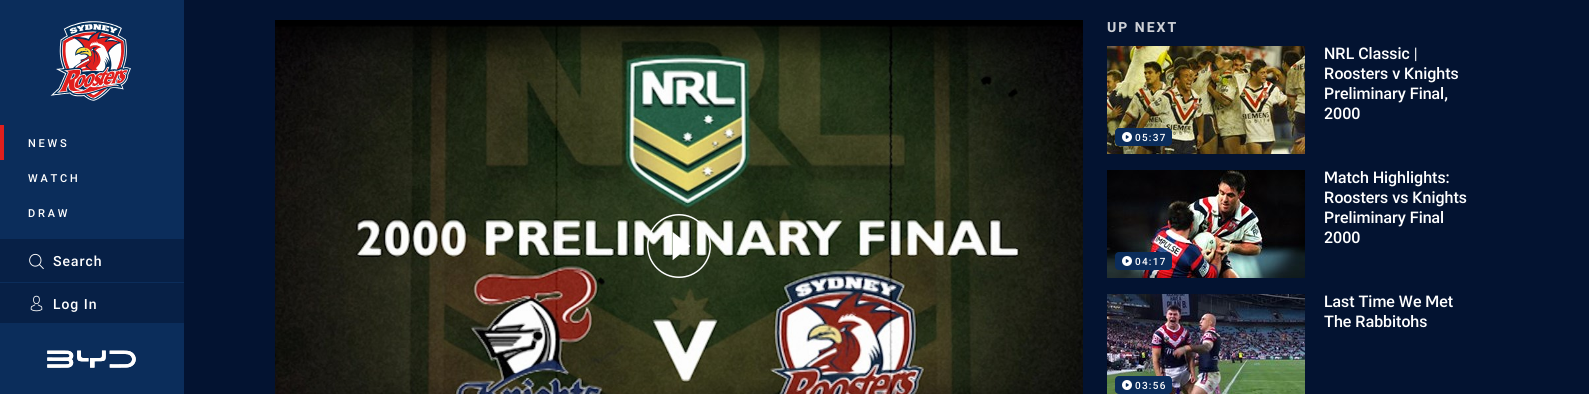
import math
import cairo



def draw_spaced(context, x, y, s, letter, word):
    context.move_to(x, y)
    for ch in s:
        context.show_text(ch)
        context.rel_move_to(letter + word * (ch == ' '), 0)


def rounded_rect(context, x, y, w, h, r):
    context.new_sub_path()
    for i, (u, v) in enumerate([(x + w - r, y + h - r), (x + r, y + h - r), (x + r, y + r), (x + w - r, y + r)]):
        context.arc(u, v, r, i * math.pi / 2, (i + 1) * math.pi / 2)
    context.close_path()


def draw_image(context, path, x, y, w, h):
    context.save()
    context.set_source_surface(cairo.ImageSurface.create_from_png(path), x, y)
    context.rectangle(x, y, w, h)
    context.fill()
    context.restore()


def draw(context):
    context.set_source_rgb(3 / 255, 19 / 255, 49 / 255)
    context.paint()
    context.set_source_rgb(11 / 255, 45 / 255, 91 / 255)
    context.rectangle(0, 0, 184, 394)
    context.fill()
    draw_image(context, "images/1.png", 50, 21, 81, 80)
    context.set_source_rgb(224 / 255, 31 / 255, 29 / 255)
    context.rectangle(0, 125, 4, 35)
    context.fill()
    context.set_source_rgb(7 / 255, 32 / 255, 70 / 255)
    context.rectangle(0, 239, 184, 43)
    context.fill()
    draw_image(context, "images/2.png", 29, 253, 15, 17)
    context.rectangle(0, 283, 184, 40)
    context.fill()
    draw_image(context, "images/3.png", 30, 295, 13, 17)
    draw_image(context, "images/4.png", 47, 350, 89, 18)
    context.set_source_rgb(0, 0, 0)
    context.rectangle(275, 20, 808, 5)
    context.fill()
    draw_image(context, "images/5.png", 275, 25, 808, 369)
    gradient = cairo.LinearGradient(679, 60, 679, 20)
    gradient.add_color_stop_rgba(0, 0, 0, 0, 0)
    gradient.add_color_stop_rgba(1, 0, 0, 0, 0.7)
    context.set_source(gradient)
    context.rectangle(275, 25, 808, 34)
    context.fill()
    draw_image(context, "images/6.png", 1107, 46, 198, 108)
    context.set_source_rgb(11 / 255, 45 / 255, 91 / 255)
    rounded_rect(context, 1115, 128, 57, 18, 4)
    context.fill()
    draw_image(context, "images/7.png", 1122, 132, 10, 10)
    draw_image(context, "images/8.png", 1107, 170, 198, 108)
    rounded_rect(context, 1115, 252, 57, 18, 4)
    context.fill()
    draw_image(context, "images/7.png", 1122, 256, 10, 10)
    draw_image(context, "images/9.png", 1107, 294, 198, 100)
    rounded_rect(context, 1115, 376, 57, 18, 4)
    context.fill()
    draw_image(context, "images/7.png", 1122, 380, 10, 10)
    context.select_font_face("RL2 Medium")
    context.set_font_size(11)
    context.set_source_rgb(1, 1, 1)
    draw_spaced(context, 28, 147, "NEWS", 2.75, 0)
    draw_spaced(context, 28, 182, "WATCH", 2.75, 0)
    draw_spaced(context, 28, 217, "DRAW", 2.75, 0)
    context.set_font_size(14)
    draw_spaced(context, 53, 266, "Search", 1, 0)
    draw_spaced(context, 53, 309, "Log In", 1, 0)
    context.select_font_face("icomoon")
    context.set_font_size(64)
    context.move_to(647, 274)
    context.show_text(">")
    context.select_font_face("RL2", cairo.FontSlant.NORMAL, cairo.FontWeight.BOLD)
    context.set_font_size(14)
    context.set_source_rgb(205 / 255, 208 / 255, 214 / 255)
    draw_spaced(context, 1107, 32, "UP NEXT", 2, 0)
    context.select_font_face("RL2 Medium")
    context.set_font_size(16)
    context.set_source_rgb(1, 1, 1)
    context.move_to(1324, 59)
    context.show_text("NRL Classic |")
    context.move_to(1324, 79)
    context.show_text("Roosters v Knights")
    context.move_to(1324, 99)
    context.show_text("Preliminary Final,")
    context.move_to(1324, 119)
    context.show_text("2000")
    context.set_font_size(10)
    draw_spaced(context, 1135, 141, "05:37", 1.25, 0)
    context.set_font_size(16)
    context.move_to(1324, 183)
    context.show_text("Match Highlights:")
    context.move_to(1324, 203)
    context.show_text("Roosters vs Knights")
    context.move_to(1324, 223)
    context.show_text("Preliminary Final")
    context.move_to(1324, 243)
    context.show_text("2000")
    context.set_font_size(10)
    draw_spaced(context, 1135, 265, "04:17", 1.25, 0)
    context.set_font_size(16)
    context.move_to(1324, 307)
    context.show_text("Last Time We Met")
    context.move_to(1324, 327)
    context.show_text("The Rabbitohs")
    context.set_font_size(10)
    draw_spaced(context, 1135, 389, "03:56", 1.25, 0)


surface = cairo.ImageSurface(cairo.Format.RGB24, 1589, 394)
context = cairo.Context(surface)
options = cairo.FontOptions()
options.set_hint_metrics(cairo.HintMetrics.OFF)
options.set_hint_style(cairo.HintStyle.NONE)
context.set_font_options(options)
context.set_miter_limit(4)
draw(context)
surface.write_to_png("out.png")
